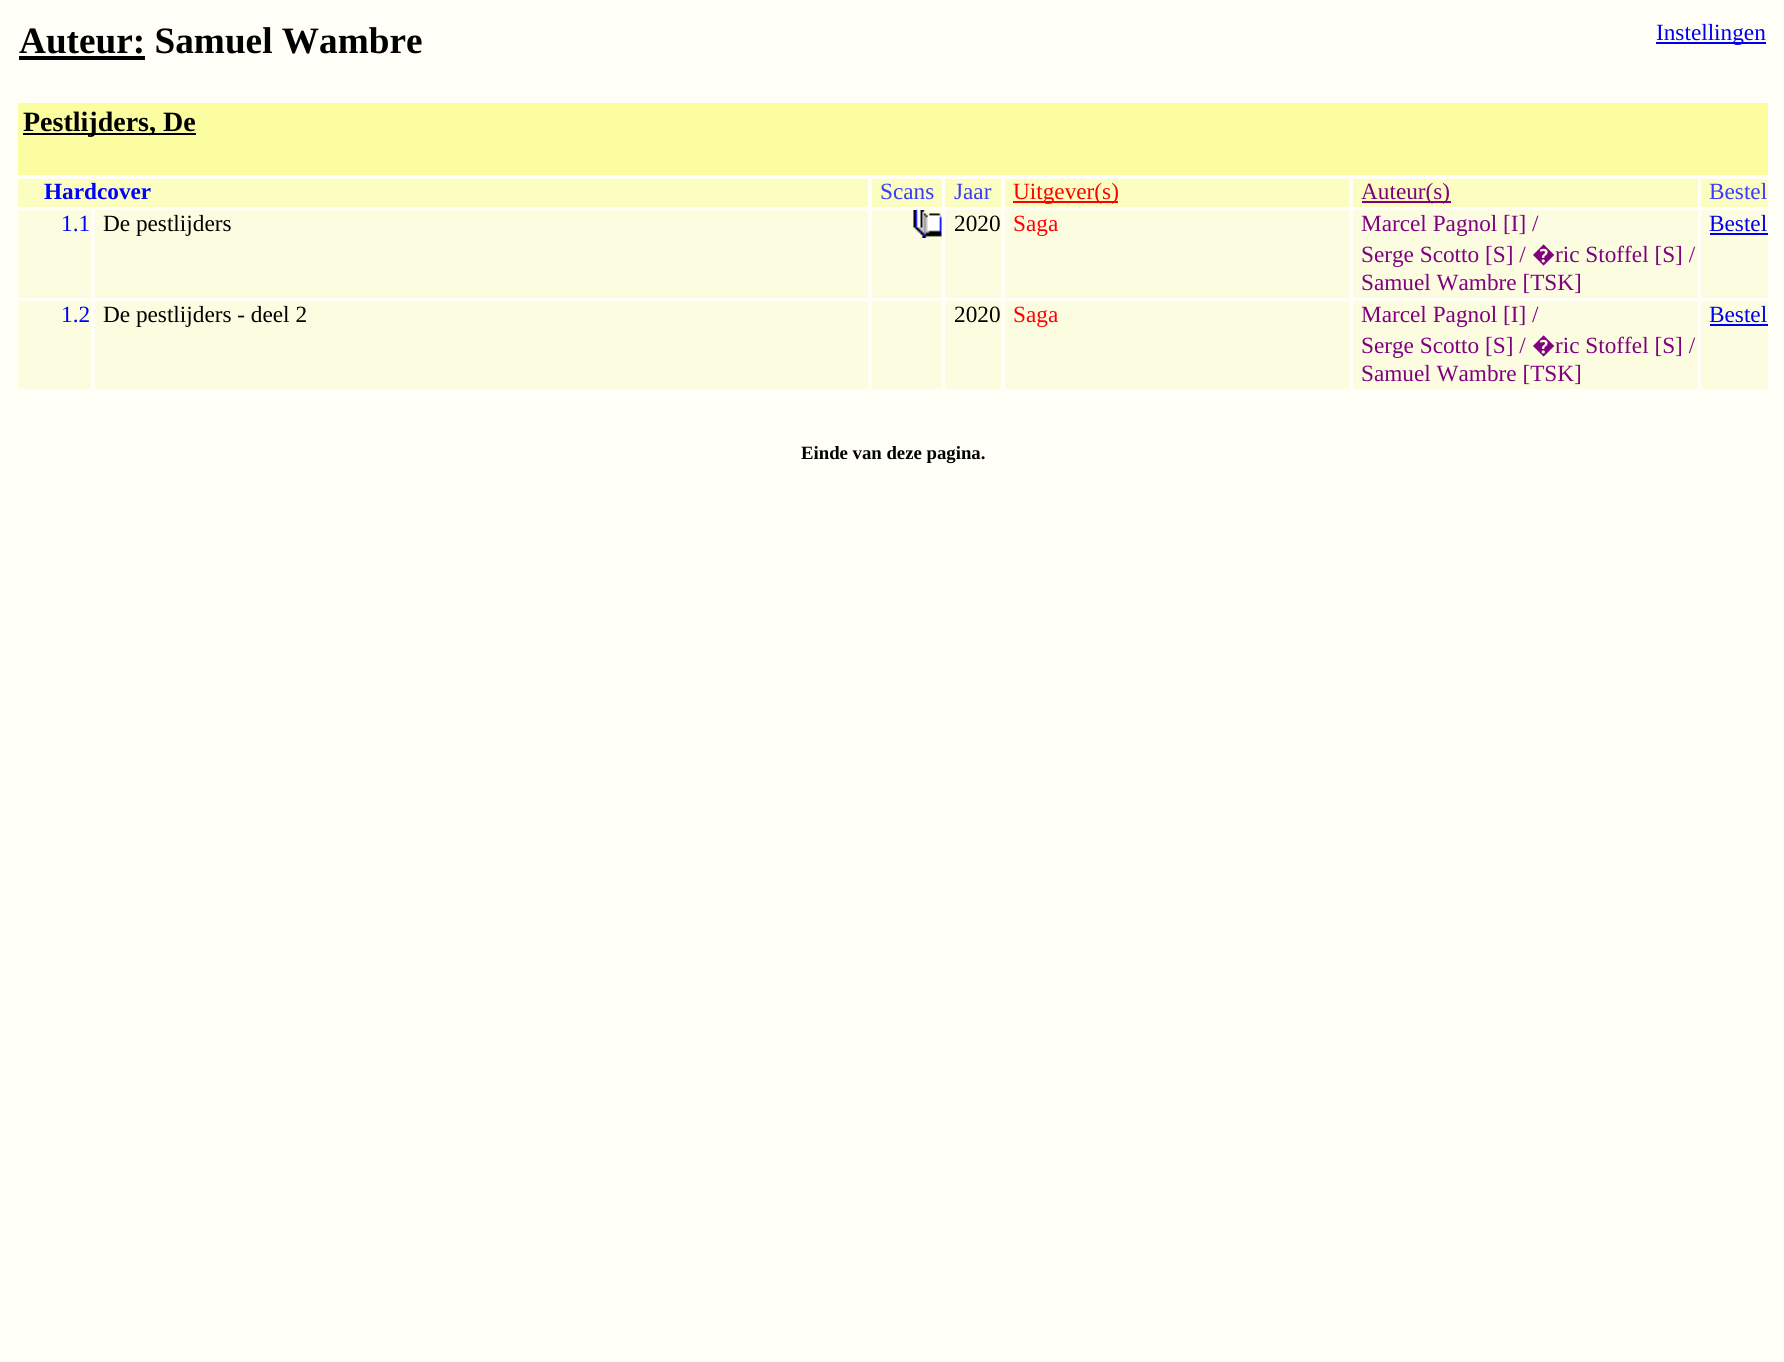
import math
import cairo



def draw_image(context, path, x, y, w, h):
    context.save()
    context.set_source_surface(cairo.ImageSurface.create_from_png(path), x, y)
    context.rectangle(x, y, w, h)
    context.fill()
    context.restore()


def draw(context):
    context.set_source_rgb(1, 1, 247 / 255)
    context.paint()
    context.set_source_rgb(0, 0, 0)
    context.rectangle(19, 56, 126, 4)
    context.fill()
    context.set_source_rgb(0, 0, 238 / 255)
    context.rectangle(1656, 42, 110, 2)
    context.fill()
    context.set_source_rgb(252 / 255, 253 / 255, 160 / 255)
    context.rectangle(18, 103, 1750, 72)
    context.fill()
    context.set_source_rgb(0, 0, 0)
    context.rectangle(23, 133, 173, 2)
    context.fill()
    context.set_source_rgb(252 / 255, 253 / 255, 192 / 255)
    context.rectangle(18, 179, 850, 28)
    context.fill()
    context.rectangle(872, 179, 70, 28)
    context.fill()
    context.rectangle(945, 179, 56, 28)
    context.fill()
    context.rectangle(1005, 179, 344, 28)
    context.fill()
    context.set_source_rgb(1, 0, 0)
    context.rectangle(1013, 201, 105, 2)
    context.fill()
    context.set_source_rgb(252 / 255, 253 / 255, 192 / 255)
    context.rectangle(1353, 179, 345, 28)
    context.fill()
    context.set_source_rgb(128 / 255, 0, 128 / 255)
    context.rectangle(1362, 201, 89, 2)
    context.fill()
    context.set_source_rgb(252 / 255, 253 / 255, 192 / 255)
    context.rectangle(1701, 179, 67, 28)
    context.fill()
    context.set_source_rgb(252 / 255, 253 / 255, 224 / 255)
    context.rectangle(18, 210, 73, 88)
    context.fill()
    context.rectangle(95, 210, 773, 88)
    context.fill()
    context.rectangle(872, 210, 70, 88)
    context.fill()
    draw_image(context, "images/1.png", 913, 210, 29, 28)
    context.rectangle(945, 210, 56, 88)
    context.fill()
    context.rectangle(1005, 210, 344, 88)
    context.fill()
    context.rectangle(1353, 210, 345, 88)
    context.fill()
    context.rectangle(1701, 210, 67, 88)
    context.fill()
    context.set_source_rgb(0, 0, 238 / 255)
    context.rectangle(1710, 233, 58, 2)
    context.fill()
    context.set_source_rgb(252 / 255, 253 / 255, 224 / 255)
    context.rectangle(18, 301, 73, 88)
    context.fill()
    context.rectangle(95, 301, 773, 88)
    context.fill()
    context.rectangle(872, 301, 70, 88)
    context.fill()
    context.rectangle(945, 301, 56, 88)
    context.fill()
    context.rectangle(1005, 301, 344, 88)
    context.fill()
    context.rectangle(1353, 301, 345, 88)
    context.fill()
    context.rectangle(1701, 301, 67, 88)
    context.fill()
    context.set_source_rgb(0, 0, 238 / 255)
    context.rectangle(1710, 324, 58, 2)
    context.fill()
    context.select_font_face("Liberation Serif", cairo.FontSlant.NORMAL, cairo.FontWeight.BOLD)
    context.set_font_size(37.25)
    context.set_source_rgb(0, 0, 0)
    context.move_to(19, 53)
    context.show_text("Auteur: Samuel Wambre")
    context.select_font_face("Liberation Serif")
    context.set_font_size(23.25)
    context.set_source_rgb(0, 0, 238 / 255)
    context.move_to(1656, 40)
    context.show_text("Instellingen")
    context.select_font_face("Liberation Serif", cairo.FontSlant.NORMAL, cairo.FontWeight.BOLD)
    context.set_font_size(28)
    context.set_source_rgb(0, 0, 0)
    context.move_to(23, 131)
    context.show_text("Pestlijders, De")
    context.set_font_size(23.25)
    context.set_source_rgb(0, 0, 1)
    context.move_to(44, 199)
    context.show_text("Hardcover")
    context.select_font_face("Liberation Serif")
    context.set_source_rgb(59 / 255, 59 / 255, 1)
    context.move_to(880, 199)
    context.show_text("Scans")
    context.move_to(954, 199)
    context.show_text("Jaar")
    context.set_source_rgb(1, 0, 0)
    context.move_to(1013, 199)
    context.show_text("Uitgever(s)")
    context.set_source_rgb(128 / 255, 0, 128 / 255)
    context.move_to(1361, 199)
    context.show_text("Auteur(s)")
    context.set_source_rgb(59 / 255, 59 / 255, 1)
    context.move_to(1709, 199)
    context.show_text("Bestel")
    context.set_source_rgb(0, 0, 1)
    context.move_to(61, 231)
    context.show_text("1.1")
    context.set_source_rgb(0, 0, 0)
    context.move_to(103, 231)
    context.show_text("De pestlijders")
    context.move_to(954, 231)
    context.show_text("2020")
    context.set_source_rgb(1, 0, 0)
    context.move_to(1013, 231)
    context.show_text("Saga")
    context.set_source_rgb(128 / 255, 0, 128 / 255)
    context.move_to(1361, 231)
    context.show_text("Marcel Pagnol [I] /")
    context.move_to(1361, 262)
    context.show_text("Serge Scotto [S] /")
    context.select_font_face("Noto Sans")
    context.move_to(1532, 262)
    context.show_text("�")
    context.select_font_face("Liberation Serif")
    context.move_to(1555, 262)
    context.show_text("ric Stoffel [S] /")
    context.move_to(1361, 290)
    context.show_text("Samuel Wambre [TSK]")
    context.set_source_rgb(0, 0, 238 / 255)
    context.move_to(1709, 231)
    context.show_text("Bestel")
    context.set_source_rgb(0, 0, 1)
    context.move_to(61, 322)
    context.show_text("1.2")
    context.set_source_rgb(0, 0, 0)
    context.move_to(103, 322)
    context.show_text("De pestlijders - deel 2")
    context.move_to(954, 322)
    context.show_text("2020")
    context.set_source_rgb(1, 0, 0)
    context.move_to(1013, 322)
    context.show_text("Saga")
    context.set_source_rgb(128 / 255, 0, 128 / 255)
    context.move_to(1361, 322)
    context.show_text("Marcel Pagnol [I] /")
    context.move_to(1361, 353)
    context.show_text("Serge Scotto [S] /")
    context.select_font_face("Noto Sans")
    context.move_to(1532, 353)
    context.show_text("�")
    context.select_font_face("Liberation Serif")
    context.move_to(1555, 353)
    context.show_text("ric Stoffel [S] /")
    context.move_to(1361, 381)
    context.show_text("Samuel Wambre [TSK]")
    context.set_source_rgb(0, 0, 238 / 255)
    context.move_to(1709, 322)
    context.show_text("Bestel")
    context.select_font_face("Liberation Serif", cairo.FontSlant.NORMAL, cairo.FontWeight.BOLD)
    context.set_font_size(18.75)
    context.set_source_rgb(0, 0, 0)
    context.move_to(801, 459)
    context.show_text("Einde van deze pagina.")


surface = cairo.ImageSurface(cairo.Format.RGB24, 1784, 1362)
context = cairo.Context(surface)
options = cairo.FontOptions()
options.set_hint_metrics(cairo.HintMetrics.OFF)
options.set_hint_style(cairo.HintStyle.NONE)
context.set_font_options(options)
context.set_miter_limit(4)
draw(context)
surface.write_to_png("out.png")
